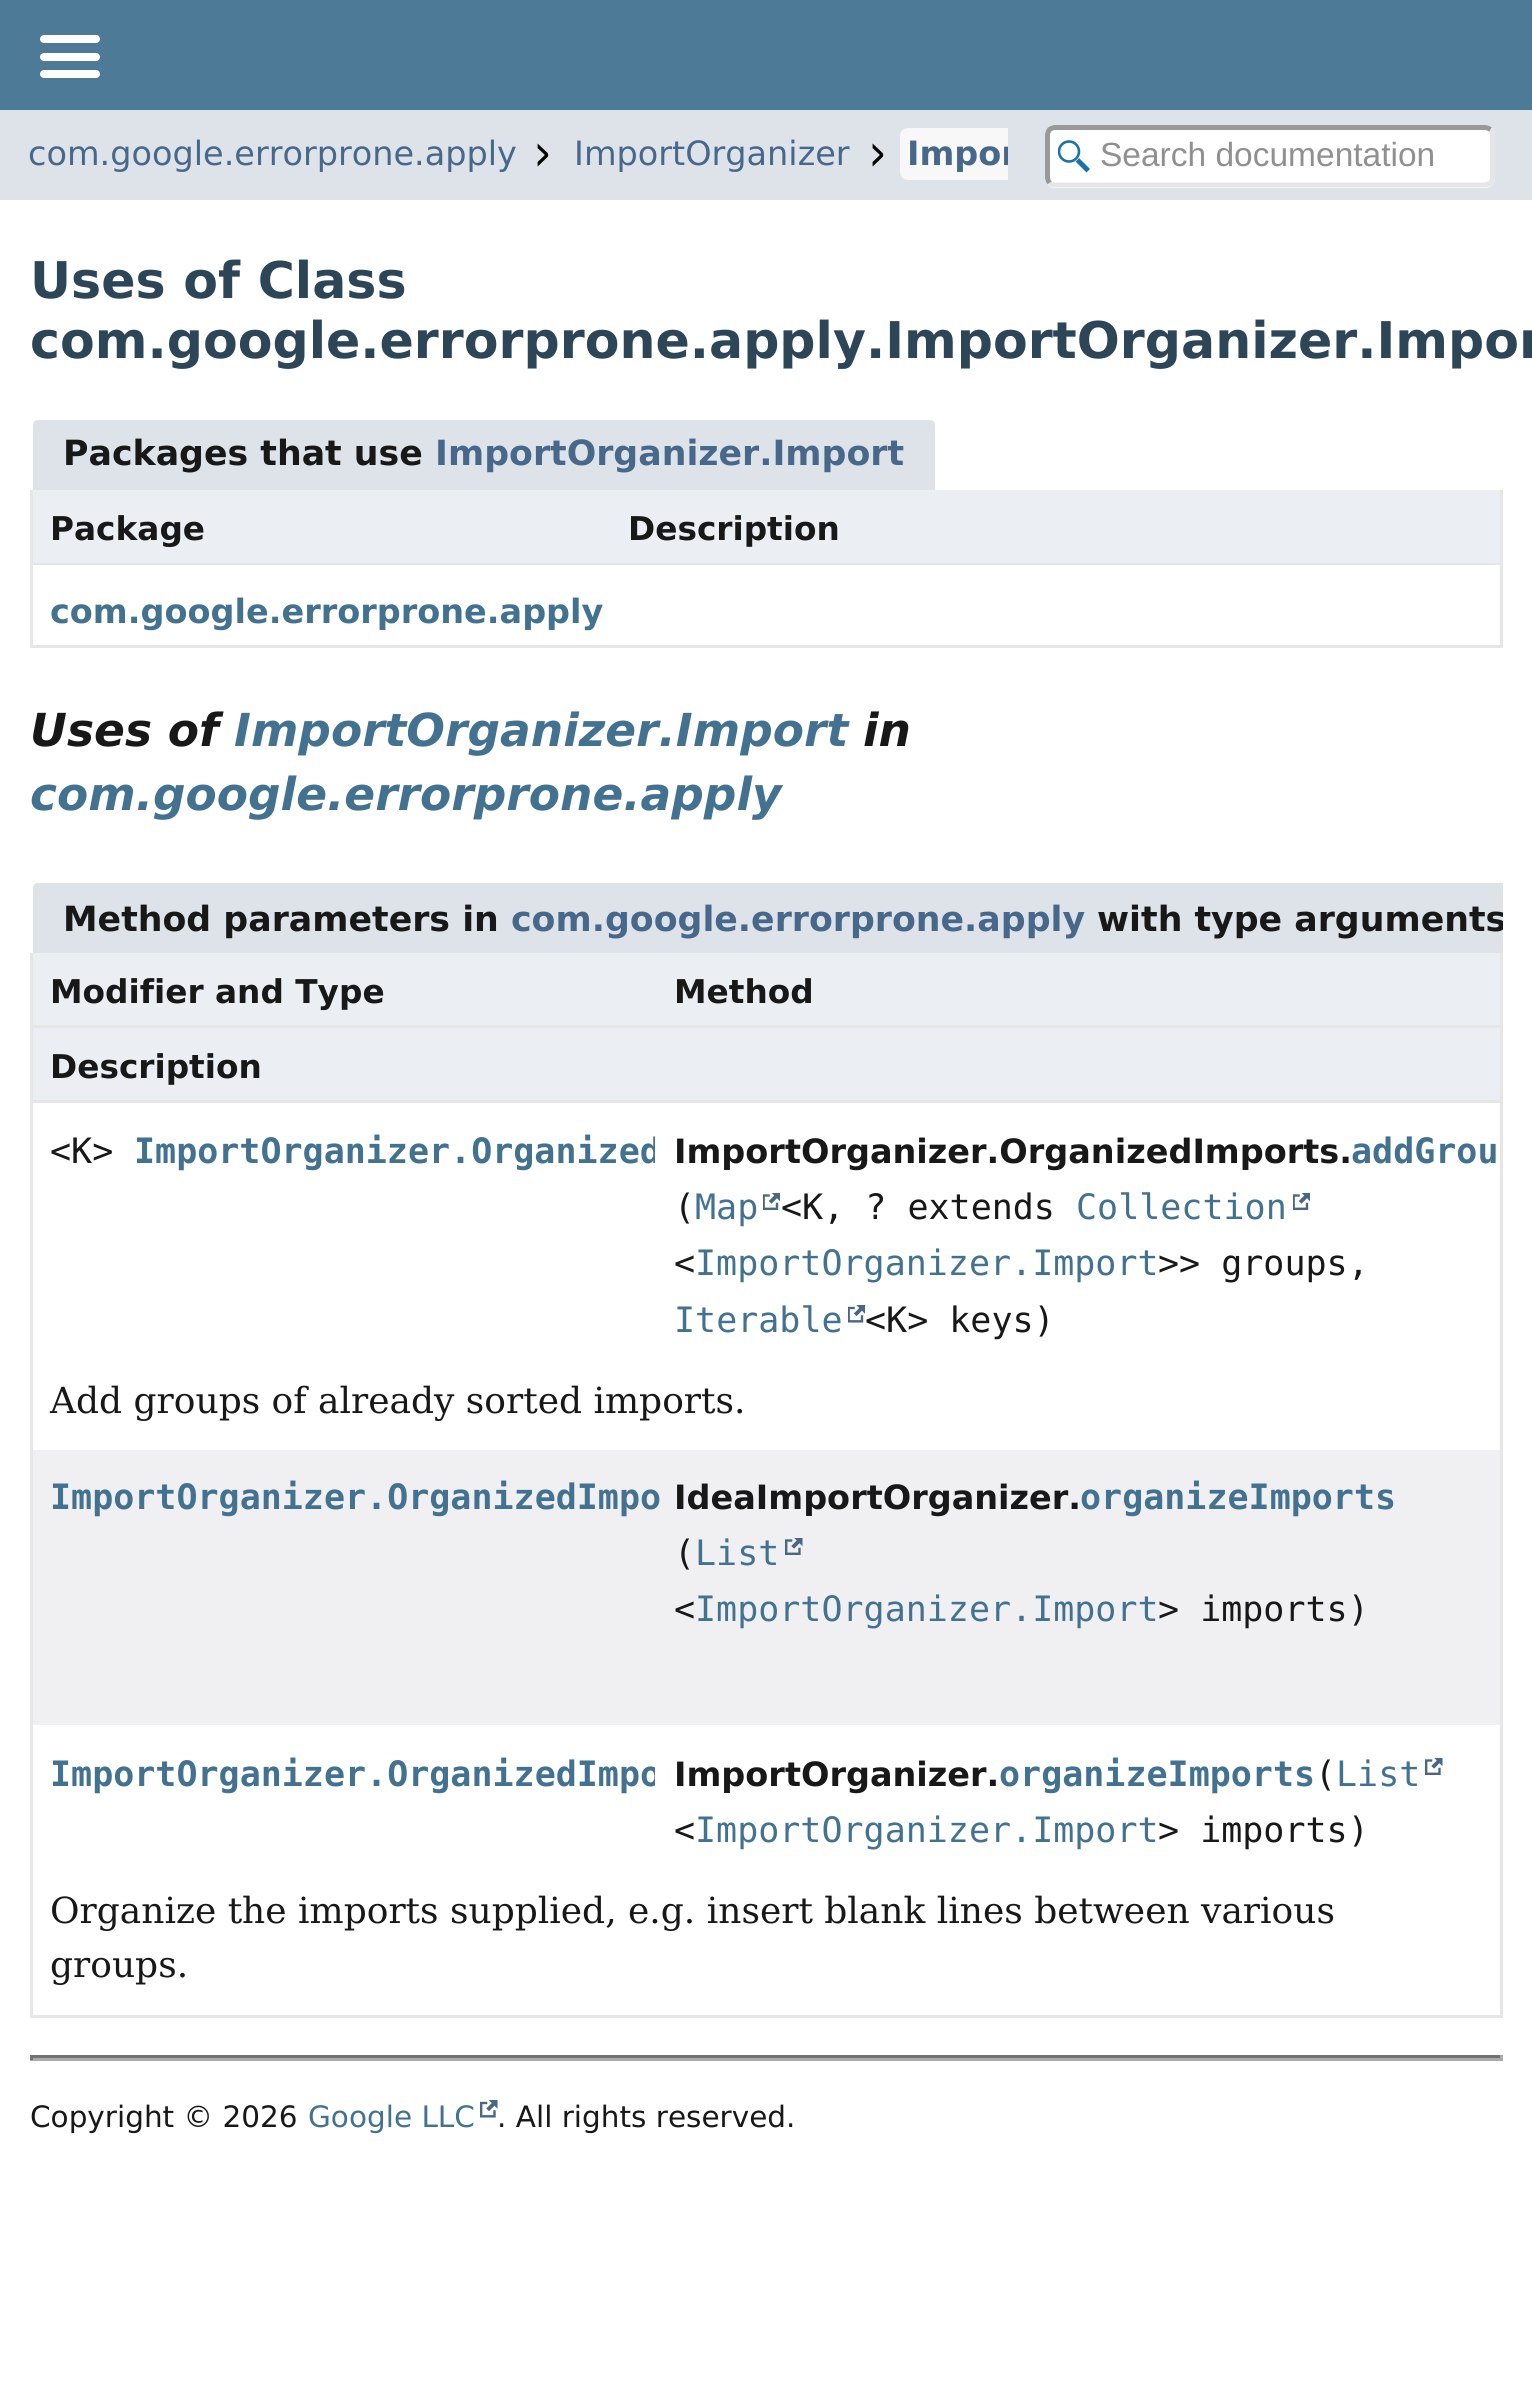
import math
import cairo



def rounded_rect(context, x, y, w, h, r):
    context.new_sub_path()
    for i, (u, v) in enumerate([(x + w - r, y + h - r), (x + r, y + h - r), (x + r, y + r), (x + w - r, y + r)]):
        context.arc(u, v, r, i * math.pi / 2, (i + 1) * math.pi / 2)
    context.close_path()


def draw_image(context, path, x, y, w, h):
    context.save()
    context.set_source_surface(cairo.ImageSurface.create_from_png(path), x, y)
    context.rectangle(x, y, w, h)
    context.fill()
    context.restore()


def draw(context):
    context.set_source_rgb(1, 1, 1)
    context.paint()
    context.set_source_rgb(77 / 255, 122 / 255, 151 / 255)
    context.rectangle(0, 0, 1532, 110)
    context.fill()
    context.set_source_rgb(1, 1, 1)
    rounded_rect(context, 40, 35, 60, 8, 4)
    context.fill()
    rounded_rect(context, 40, 53, 60, 8, 4)
    context.fill()
    rounded_rect(context, 40, 70, 60, 8, 4)
    context.fill()
    context.set_source_rgb(222 / 255, 227 / 255, 233 / 255)
    context.rectangle(0, 110, 1532, 90)
    context.fill()
    draw_image(context, "images/1.png", 537, 143, 12, 24)
    draw_image(context, "images/1.png", 872, 143, 12, 24)
    context.set_source_rgb(248 / 255, 248 / 255, 248 / 255)
    context.new_path()
    context.move_to(908, 128)
    context.line_to(1008, 128)
    context.line_to(1008, 180)
    context.line_to(908, 180)
    context.curve_to(903.5, 180, 900, 176.5, 900, 172)
    context.line_to(900, 136)
    context.curve_to(900, 131.5, 903.5, 128, 908, 128)
    context.close_path()
    context.fill()
    context.set_source_rgb(1, 1, 1)
    rounded_rect(context, 1045, 125, 450, 63, 10)
    context.fill()
    context.set_source_rgb(26 / 255, 115 / 255, 168 / 255)
    context.new_path()
    context.move_to(1079, 158)
    context.curve_to(1078.5, 159, 1077, 160.5, 1075.5, 161.5)
    context.line_to(1086.5, 172.5)
    context.line_to(1090, 169)
    context.close_path()
    context.fill()
    context.save()
    context.rectangle(1058, 140, 32, 33)
    context.clip()
    context.arc(1069, 151.5, 10, 0, 2 * math.pi)
    context.set_line_width(2.6)
    context.stroke()
    context.restore()
    context.new_path()
    context.move_to(1490.5, 129.5)
    context.curve_to(1491.5, 131, 1492.5, 133, 1492.5, 135)
    context.line_to(1492.5, 177.5)
    context.curve_to(1492.5, 179.5, 1491.5, 181.5, 1490.5, 183)
    context.curve_to(1489, 184, 1487, 185, 1485, 185)
    context.line_to(1055, 185)
    context.curve_to(1053, 185, 1051, 184, 1049.5, 183)
    context.set_source_rgb(230 / 255, 230 / 255, 230 / 255)
    context.set_line_width(5)
    context.stroke()
    context.new_path()
    context.move_to(1049.5, 183)
    context.curve_to(1048.5, 181.5, 1047.5, 179.5, 1047.5, 177.5)
    context.line_to(1047.5, 135)
    context.curve_to(1047.5, 133, 1048.5, 131, 1049.5, 129.5)
    context.curve_to(1051, 128.5, 1053, 127.5, 1055, 127.5)
    context.line_to(1485, 127.5)
    context.curve_to(1487, 127.5, 1489, 128.5, 1490.5, 129.5)
    context.set_source_rgb(153 / 255, 153 / 255, 153 / 255)
    context.stroke()
    context.set_source_rgb(222 / 255, 227 / 255, 233 / 255)
    context.new_path()
    context.move_to(38, 420)
    context.line_to(930, 420)
    context.curve_to(933, 420, 935, 422, 935, 425)
    context.line_to(935, 490)
    context.line_to(33, 490)
    context.line_to(33, 425)
    context.curve_to(33, 422, 35, 420, 38, 420)
    context.close_path()
    context.fill()
    context.set_source_rgb(230 / 255, 230 / 255, 230 / 255)
    context.rectangle(1500, 490, 3, 158)
    context.fill()
    context.rectangle(30, 645, 1473, 3)
    context.fill()
    context.rectangle(30, 490, 3, 158)
    context.fill()
    context.set_source_rgb(235 / 255, 239 / 255, 244 / 255)
    context.rectangle(33, 490, 1467, 73)
    context.fill()
    context.set_source_rgb(230 / 255, 230 / 255, 230 / 255)
    context.rectangle(33, 563, 1467, 2)
    context.fill()
    context.set_source_rgb(222 / 255, 227 / 255, 233 / 255)
    context.new_path()
    context.move_to(38, 883)
    context.line_to(1503, 883)
    context.line_to(1503, 953)
    context.line_to(33, 953)
    context.line_to(33, 888)
    context.curve_to(33, 885, 35, 883, 38, 883)
    context.close_path()
    context.fill()
    context.set_source_rgb(230 / 255, 230 / 255, 230 / 255)
    context.rectangle(1500, 953, 3, 1065)
    context.fill()
    context.rectangle(30, 2015, 1473, 3)
    context.fill()
    context.rectangle(30, 953, 3, 1065)
    context.fill()
    context.set_source_rgb(235 / 255, 239 / 255, 244 / 255)
    context.rectangle(33, 953, 1467, 72)
    context.fill()
    context.set_source_rgb(230 / 255, 230 / 255, 230 / 255)
    context.rectangle(33, 1025, 1467, 3)
    context.fill()
    context.set_source_rgb(235 / 255, 239 / 255, 244 / 255)
    context.rectangle(33, 1028, 1467, 72)
    context.fill()
    context.set_source_rgb(230 / 255, 230 / 255, 230 / 255)
    context.rectangle(33, 1100, 1467, 3)
    context.fill()
    draw_image(context, "images/2.png", 763, 1193, 17, 17)
    draw_image(context, "images/2.png", 1293, 1193, 17, 17)
    draw_image(context, "images/3.png", 848, 1305, 17, 18)
    context.set_source_rgb(240 / 255, 240 / 255, 242 / 255)
    context.rectangle(33, 1450, 1467, 275)
    context.fill()
    draw_image(context, "images/4.png", 785, 1538, 18, 17)
    draw_image(context, "images/5.png", 1425, 1758, 18, 17)
    context.set_source_rgb(113 / 255, 113 / 255, 113 / 255)
    context.rectangle(30, 2055, 1473, 3)
    context.fill()
    context.set_source_rgb(170 / 255, 170 / 255, 170 / 255)
    context.rectangle(1500, 2055, 3, 5)
    context.fill()
    context.rectangle(30, 2058, 1473, 3)
    context.fill()
    context.set_source_rgb(113 / 255, 113 / 255, 113 / 255)
    context.rectangle(30, 2055, 3, 5)
    context.fill()
    draw_image(context, "images/6.png", 480, 2100, 18, 18)
    context.select_font_face("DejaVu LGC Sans")
    context.set_font_size(33.5)
    context.set_source_rgb(71 / 255, 104 / 255, 138 / 255)
    context.move_to(28, 165)
    context.show_text("com.google.errorprone.apply")
    context.move_to(574, 165)
    context.show_text("ImportOrganizer")
    context.save()
    context.rectangle(10, 125, 998, 60)
    context.clip()
    context.select_font_face("DejaVu LGC Sans", cairo.FontSlant.NORMAL, cairo.FontWeight.BOLD)
    context.move_to(907, 165)
    context.show_text("Impor")
    context.restore()
    context.select_font_face("Liberation Sans")
    context.set_source_rgb(144 / 255, 144 / 255, 144 / 255)
    context.move_to(1100, 166)
    context.show_text("Search documentation")
    context.select_font_face("DejaVu LGC Sans", cairo.FontSlant.NORMAL, cairo.FontWeight.BOLD)
    context.set_font_size(50.6)
    context.set_source_rgb(44 / 255, 69 / 255, 87 / 255)
    context.move_to(30, 298)
    context.show_text("Uses of Class")
    context.move_to(30, 358)
    context.show_text("com.google.errorprone.apply.ImportOrganizer.Impor")
    context.set_font_size(34.75)
    context.set_source_rgb(24 / 255, 24 / 255, 24 / 255)
    context.move_to(63, 465)
    context.show_text("Packages that use")
    context.set_source_rgb(71 / 255, 104 / 255, 138 / 255)
    context.move_to(435, 465)
    context.show_text("ImportOrganizer.Import")
    context.set_font_size(32.75)
    context.set_source_rgb(24 / 255, 24 / 255, 24 / 255)
    context.move_to(50, 540)
    context.show_text("Package")
    context.move_to(628, 540)
    context.show_text("Description")
    context.set_font_size(33.5)
    context.set_source_rgb(67 / 255, 114 / 255, 145 / 255)
    context.move_to(50, 623)
    context.show_text("com.google.errorprone.apply")
    context.select_font_face("DejaVu LGC Sans", cairo.FontSlant.ITALIC, cairo.FontWeight.BOLD)
    context.set_font_size(45.5)
    context.set_source_rgb(24 / 255, 24 / 255, 24 / 255)
    context.move_to(30, 746)
    context.show_text("Uses of")
    context.set_source_rgb(67 / 255, 114 / 255, 145 / 255)
    context.move_to(234, 746)
    context.show_text("ImportOrganizer.Import")
    context.set_source_rgb(24 / 255, 24 / 255, 24 / 255)
    context.move_to(863, 746)
    context.show_text("in")
    context.set_source_rgb(67 / 255, 114 / 255, 145 / 255)
    context.move_to(30, 810)
    context.show_text("com.google.errorprone.apply")
    context.select_font_face("DejaVu LGC Sans", cairo.FontSlant.NORMAL, cairo.FontWeight.BOLD)
    context.set_font_size(34.75)
    context.set_source_rgb(24 / 255, 24 / 255, 24 / 255)
    context.move_to(63, 931)
    context.show_text("Method parameters in")
    context.set_source_rgb(71 / 255, 104 / 255, 138 / 255)
    context.move_to(511, 931)
    context.show_text("com.google.errorprone.apply")
    context.save()
    context.rectangle(30, 863, 1473, 90)
    context.clip()
    context.set_source_rgb(24 / 255, 24 / 255, 24 / 255)
    context.move_to(1097, 931)
    context.show_text("with type arguments")
    context.restore()
    context.set_font_size(32.75)
    context.set_source_rgb(24 / 255, 24 / 255, 24 / 255)
    context.move_to(50, 1003)
    context.show_text("Modifier and Type")
    context.move_to(674, 1003)
    context.show_text("Method")
    context.move_to(50, 1078)
    context.show_text("Description")
    context.select_font_face("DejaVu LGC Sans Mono")
    context.set_font_size(35)
    context.move_to(50, 1163)
    context.show_text("<K>")
    context.save()
    context.rectangle(33, 1103, 622, 252)
    context.clip()
    context.select_font_face("DejaVu LGC Sans Mono", cairo.FontSlant.NORMAL, cairo.FontWeight.BOLD)
    context.set_source_rgb(67 / 255, 114 / 255, 145 / 255)
    context.move_to(134, 1163)
    context.show_text("ImportOrganizer.Organized")
    context.restore()
    context.select_font_face("DejaVu LGC Sans Mono", cairo.FontSlant.NORMAL, cairo.FontWeight.BOLD)
    context.set_source_rgb(67 / 255, 114 / 255, 145 / 255)
    context.move_to(1351, 1163)
    context.show_text("addGrou")
    context.select_font_face("DejaVu LGC Sans Mono")
    context.set_source_rgb(24 / 255, 24 / 255, 24 / 255)
    context.move_to(674, 1219)
    context.show_text("(")
    context.set_source_rgb(67 / 255, 114 / 255, 145 / 255)
    context.move_to(695, 1219)
    context.show_text("Map")
    context.set_source_rgb(24 / 255, 24 / 255, 24 / 255)
    context.move_to(781, 1219)
    context.show_text("<K, ? extends")
    context.set_source_rgb(67 / 255, 114 / 255, 145 / 255)
    context.move_to(1076, 1219)
    context.show_text("Collection")
    context.set_source_rgb(24 / 255, 24 / 255, 24 / 255)
    context.move_to(674, 1275)
    context.show_text("<")
    context.set_source_rgb(67 / 255, 114 / 255, 145 / 255)
    context.move_to(695, 1275)
    context.show_text("ImportOrganizer.Import")
    context.set_source_rgb(24 / 255, 24 / 255, 24 / 255)
    context.move_to(1158, 1275)
    context.show_text(">> groups,")
    context.set_source_rgb(67 / 255, 114 / 255, 145 / 255)
    context.move_to(674, 1332)
    context.show_text("Iterable")
    context.set_source_rgb(24 / 255, 24 / 255, 24 / 255)
    context.move_to(865, 1332)
    context.show_text("<K> keys)")
    context.select_font_face("DejaVu LGC Sans", cairo.FontSlant.NORMAL, cairo.FontWeight.BOLD)
    context.set_font_size(33.5)
    context.move_to(674, 1163)
    context.show_text("ImportOrganizer.OrganizedImports.")
    context.select_font_face("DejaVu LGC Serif")
    context.set_font_size(36)
    context.move_to(50, 1413)
    context.show_text("Add groups of already sorted imports.")
    context.select_font_face("DejaVu LGC Sans Mono", cairo.FontSlant.NORMAL, cairo.FontWeight.BOLD)
    context.set_font_size(35)
    context.set_source_rgb(67 / 255, 114 / 255, 145 / 255)
    context.move_to(50, 1509)
    context.show_text("ImportOrganizer.OrganizedImpo")
    context.move_to(1080, 1509)
    context.show_text("organizeImports")
    context.select_font_face("DejaVu LGC Sans Mono")
    context.set_source_rgb(24 / 255, 24 / 255, 24 / 255)
    context.move_to(674, 1565)
    context.show_text("(")
    context.set_source_rgb(67 / 255, 114 / 255, 145 / 255)
    context.move_to(695, 1565)
    context.show_text("List")
    context.set_source_rgb(24 / 255, 24 / 255, 24 / 255)
    context.move_to(674, 1621)
    context.show_text("<")
    context.set_source_rgb(67 / 255, 114 / 255, 145 / 255)
    context.move_to(695, 1621)
    context.show_text("ImportOrganizer.Import")
    context.set_source_rgb(24 / 255, 24 / 255, 24 / 255)
    context.move_to(1158, 1621)
    context.show_text("> imports)")
    context.select_font_face("DejaVu LGC Sans", cairo.FontSlant.NORMAL, cairo.FontWeight.BOLD)
    context.set_font_size(33.5)
    context.move_to(674, 1509)
    context.show_text("IdeaImportOrganizer.")
    context.save()
    context.rectangle(33, 1725, 622, 140)
    context.clip()
    context.select_font_face("DejaVu LGC Sans Mono", cairo.FontSlant.NORMAL, cairo.FontWeight.BOLD)
    context.set_font_size(35)
    context.set_source_rgb(67 / 255, 114 / 255, 145 / 255)
    context.move_to(50, 1786)
    context.show_text("ImportOrganizer.OrganizedImpo")
    context.restore()
    context.select_font_face("DejaVu LGC Sans Mono", cairo.FontSlant.NORMAL, cairo.FontWeight.BOLD)
    context.set_font_size(35)
    context.set_source_rgb(67 / 255, 114 / 255, 145 / 255)
    context.move_to(999, 1786)
    context.show_text("organizeImports")
    context.select_font_face("DejaVu LGC Sans Mono")
    context.set_source_rgb(24 / 255, 24 / 255, 24 / 255)
    context.move_to(1315, 1786)
    context.show_text("(")
    context.set_source_rgb(67 / 255, 114 / 255, 145 / 255)
    context.move_to(1336, 1786)
    context.show_text("List")
    context.set_source_rgb(24 / 255, 24 / 255, 24 / 255)
    context.move_to(674, 1842)
    context.show_text("<")
    context.set_source_rgb(67 / 255, 114 / 255, 145 / 255)
    context.move_to(695, 1842)
    context.show_text("ImportOrganizer.Import")
    context.set_source_rgb(24 / 255, 24 / 255, 24 / 255)
    context.move_to(1158, 1842)
    context.show_text("> imports)")
    context.select_font_face("DejaVu LGC Sans", cairo.FontSlant.NORMAL, cairo.FontWeight.BOLD)
    context.set_font_size(33.5)
    context.move_to(674, 1786)
    context.show_text("ImportOrganizer.")
    context.select_font_face("DejaVu LGC Serif")
    context.set_font_size(36)
    context.move_to(50, 1923)
    context.show_text("Organize the imports supplied, e.g. insert blank lines between various")
    context.move_to(50, 1977)
    context.show_text("groups.")
    context.select_font_face("DejaVu LGC Sans")
    context.set_font_size(29.5)
    context.move_to(30, 2127)
    context.show_text("Copyright © 2026")
    context.set_source_rgb(67 / 255, 114 / 255, 145 / 255)
    context.move_to(308, 2127)
    context.show_text("Google LLC")
    context.set_source_rgb(24 / 255, 24 / 255, 24 / 255)
    context.move_to(497, 2127)
    context.show_text(". All rights reserved.")


surface = cairo.ImageSurface(cairo.Format.RGB24, 1532, 2395)
context = cairo.Context(surface)
options = cairo.FontOptions()
options.set_hint_metrics(cairo.HintMetrics.OFF)
options.set_hint_style(cairo.HintStyle.NONE)
context.set_font_options(options)
context.set_miter_limit(4)
draw(context)
surface.write_to_png("out.png")
